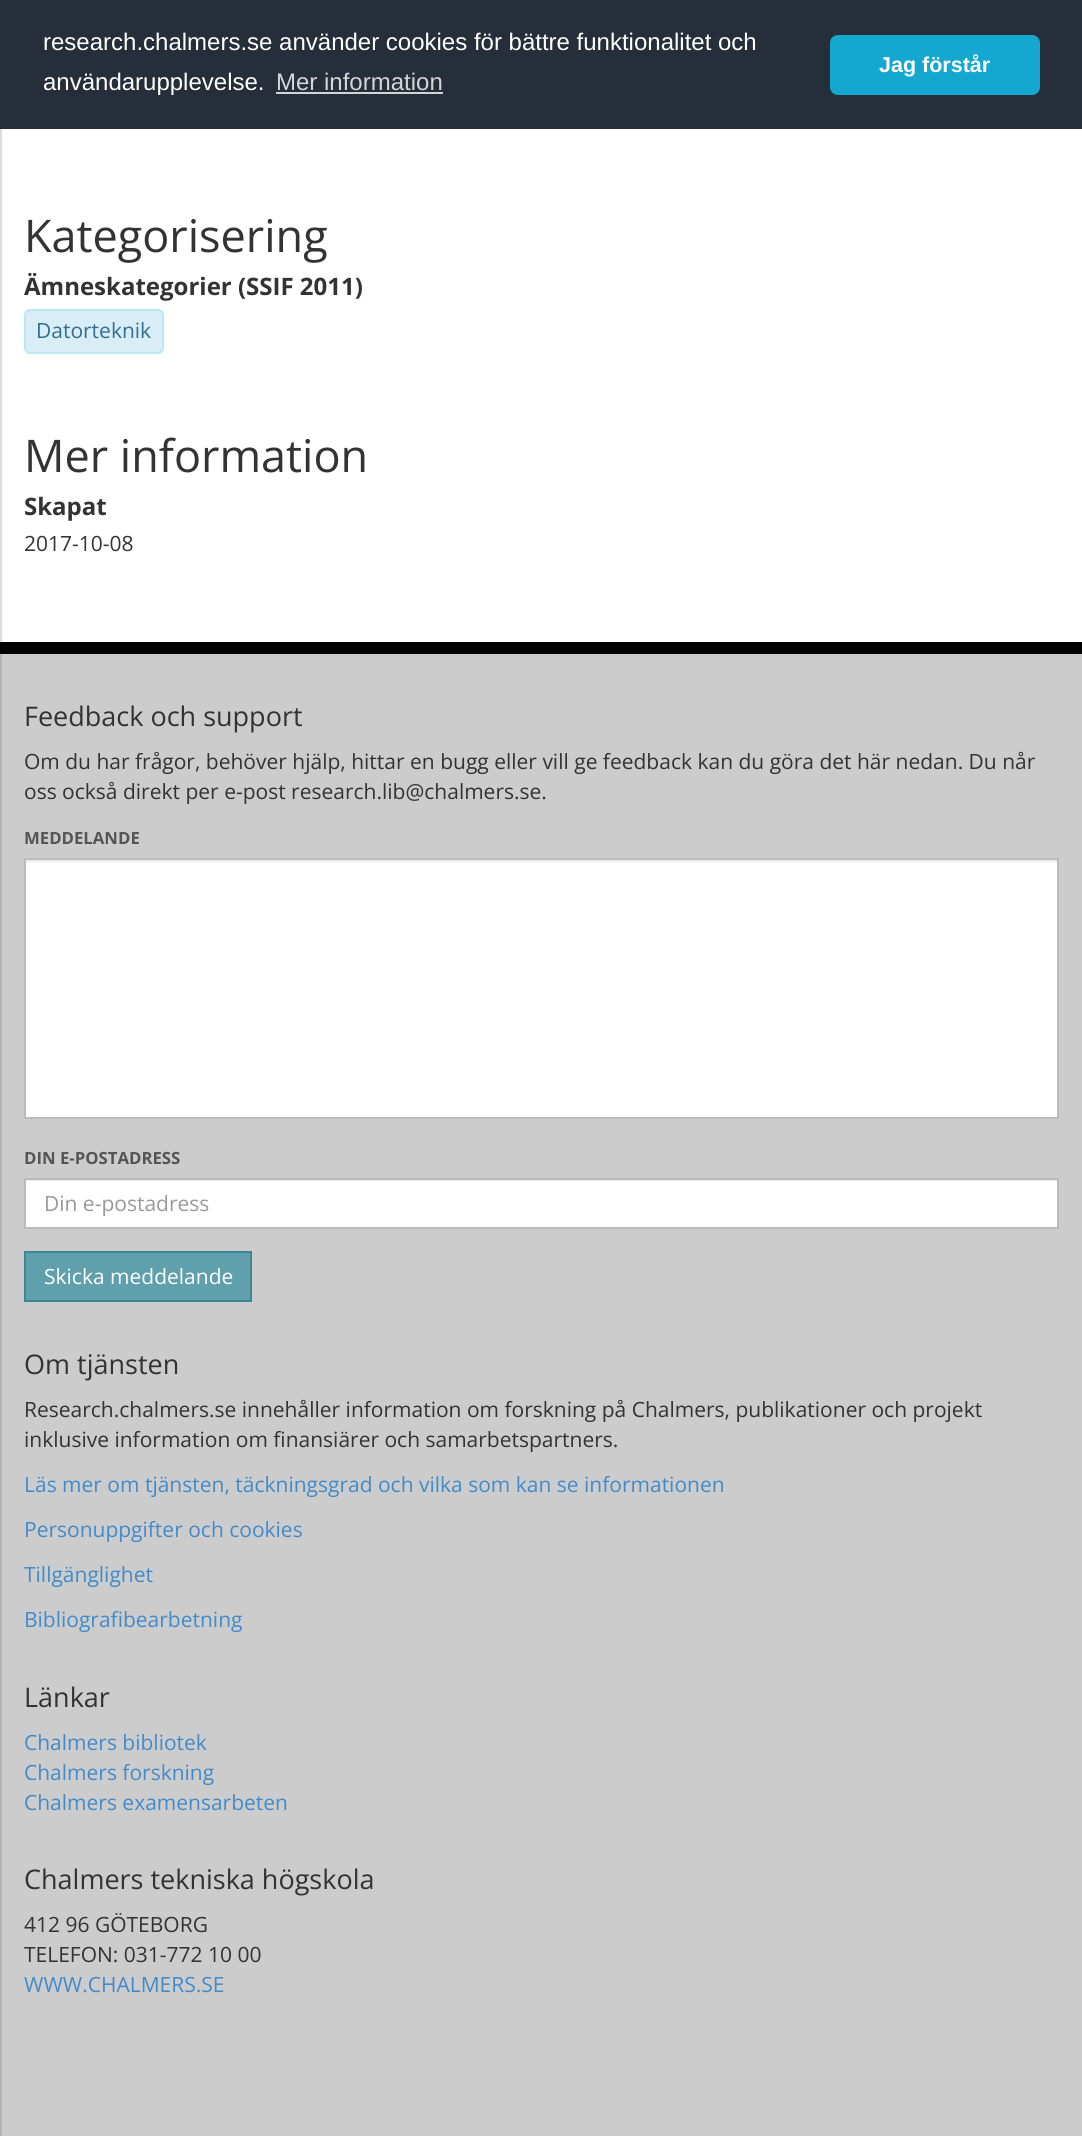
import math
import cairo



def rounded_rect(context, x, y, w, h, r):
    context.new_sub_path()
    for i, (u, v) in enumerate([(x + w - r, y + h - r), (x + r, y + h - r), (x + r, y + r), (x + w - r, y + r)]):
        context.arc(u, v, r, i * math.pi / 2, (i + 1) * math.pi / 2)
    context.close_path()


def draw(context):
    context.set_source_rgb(1, 1, 1)
    context.paint()
    context.set_source_rgb(37 / 255, 46 / 255, 57 / 255)
    context.rectangle(0, 0, 1082, 129)
    context.fill()
    context.set_source_rgb(211 / 255, 213 / 255, 215 / 255)
    context.rectangle(276, 92, 167, 2)
    context.fill()
    context.set_source_rgb(20 / 255, 167 / 255, 208 / 255)
    rounded_rect(context, 830, 35, 210, 60, 8)
    context.fill()
    context.set_source_rgb(220 / 255, 220 / 255, 220 / 255)
    context.rectangle(0, 129, 2, 513)
    context.fill()
    context.set_source_rgb(217 / 255, 237 / 255, 247 / 255)
    rounded_rect(context, 25, 310, 138, 43, 5)
    context.fill_preserve()
    context.set_source_rgb(188 / 255, 232 / 255, 241 / 255)
    context.stroke()
    context.set_source_rgb(204 / 255, 204 / 255, 204 / 255)
    context.rectangle(2, 654, 1080, 1482)
    context.fill()
    context.set_source_rgb(0, 0, 0)
    context.rectangle(0, 642, 1082, 12)
    context.fill()
    context.set_source_rgb(180 / 255, 180 / 255, 180 / 255)
    context.rectangle(0, 654, 2, 1482)
    context.fill()
    context.set_source_rgb(1, 1, 1)
    context.rectangle(26, 862, 1031, 255)
    context.fill()
    context.set_source_rgb(236 / 255, 236 / 255, 236 / 255)
    context.rectangle(26, 860, 1032, 2)
    context.fill()
    context.rectangle(25, 859, 1033, 259)
    context.set_source_rgb(187 / 255, 187 / 255, 187 / 255)
    context.stroke()
    context.set_source_rgb(1, 1, 1)
    context.rectangle(26, 1181, 1031, 46)
    context.fill()
    context.set_source_rgb(236 / 255, 236 / 255, 236 / 255)
    context.rectangle(26, 1180, 1032, 1)
    context.fill()
    context.rectangle(25, 1179, 1033, 49)
    context.set_source_rgb(187 / 255, 187 / 255, 187 / 255)
    context.stroke()
    context.set_source_rgb(96 / 255, 160 / 255, 172 / 255)
    context.rectangle(25, 1252, 226, 49)
    context.fill_preserve()
    context.set_source_rgb(56 / 255, 136 / 255, 152 / 255)
    context.stroke()
    context.select_font_face("Liberation Sans")
    context.set_font_size(24)
    context.set_source_rgb(1, 1, 1)
    context.move_to(43, 50)
    context.show_text("research.chalmers.se använder cookies för bättre funktionalitet och")
    context.move_to(43, 90)
    context.show_text("användarupplevelse.")
    context.set_source_rgb(211 / 255, 213 / 255, 215 / 255)
    context.move_to(276, 90)
    context.show_text("Mer information")
    context.select_font_face("Liberation Sans", cairo.FontSlant.NORMAL, cairo.FontWeight.BOLD)
    context.set_font_size(21.5)
    context.set_source_rgb(1, 1, 1)
    context.move_to(879, 72)
    context.show_text("Jag förstår")
    context.select_font_face("Open Sans")
    context.set_font_size(45)
    context.set_source_rgb(51 / 255, 51 / 255, 51 / 255)
    context.move_to(24, 252)
    context.show_text("Kategorisering")
    context.select_font_face("Open Sans", cairo.FontSlant.NORMAL, cairo.FontWeight.BOLD)
    context.set_font_size(24)
    context.move_to(24, 295)
    context.show_text("Ämneskategorier (SSIF 2011)")
    context.select_font_face("Open Sans")
    context.set_font_size(21)
    context.set_source_rgb(49 / 255, 112 / 255, 143 / 255)
    context.move_to(36, 338)
    context.show_text("Datorteknik")
    context.set_font_size(45)
    context.set_source_rgb(51 / 255, 51 / 255, 51 / 255)
    context.move_to(24, 472)
    context.show_text("Mer information")
    context.select_font_face("Open Sans", cairo.FontSlant.NORMAL, cairo.FontWeight.BOLD)
    context.set_font_size(24)
    context.move_to(24, 515)
    context.show_text("Skapat")
    context.select_font_face("Open Sans")
    context.set_font_size(21)
    context.move_to(24, 551)
    context.show_text("2017-10-08")
    context.set_font_size(27)
    context.move_to(24, 726)
    context.show_text("Feedback och support")
    context.set_font_size(21)
    context.move_to(24, 769)
    context.show_text("Om du har frågor, behöver hjälp, hittar en bugg eller vill ge feedback kan du göra det här nedan. Du når")
    context.move_to(24, 799)
    context.show_text("oss också direkt per e-post research.lib@chalmers.se.")
    context.select_font_face("Open Sans", cairo.FontSlant.NORMAL, cairo.FontWeight.BOLD)
    context.set_font_size(16.75)
    context.set_source_rgb(85 / 255, 85 / 255, 85 / 255)
    context.move_to(24, 844)
    context.show_text("MEDDELANDE")
    context.move_to(24, 1164)
    context.show_text("DIN E-POSTADRESS")
    context.select_font_face("Open Sans")
    context.set_font_size(21)
    context.set_source_rgb(153 / 255, 153 / 255, 153 / 255)
    context.move_to(44, 1211)
    context.show_text("Din e-postadress")
    context.set_source_rgb(1, 1, 1)
    context.move_to(44, 1284)
    context.show_text("Skicka meddelande")
    context.set_font_size(27)
    context.set_source_rgb(51 / 255, 51 / 255, 51 / 255)
    context.move_to(24, 1374)
    context.show_text("Om tjänsten")
    context.set_font_size(21)
    context.move_to(24, 1417)
    context.show_text("Research.chalmers.se innehåller information om forskning på Chalmers, publikationer och projekt")
    context.move_to(24, 1447)
    context.show_text("inklusive information om finansiärer och samarbetspartners.")
    context.set_source_rgb(66 / 255, 139 / 255, 202 / 255)
    context.move_to(24, 1492)
    context.show_text("Läs mer om tjänsten, täckningsgrad och vilka som kan se informationen")
    context.move_to(24, 1537)
    context.show_text("Personuppgifter och cookies")
    context.move_to(24, 1582)
    context.show_text("Tillgänglighet")
    context.move_to(24, 1627)
    context.show_text("Bibliografibearbetning")
    context.set_font_size(27)
    context.set_source_rgb(51 / 255, 51 / 255, 51 / 255)
    context.move_to(24, 1707)
    context.show_text("Länkar")
    context.set_font_size(21)
    context.set_source_rgb(66 / 255, 139 / 255, 202 / 255)
    context.move_to(24, 1750)
    context.show_text("Chalmers bibliotek")
    context.move_to(24, 1780)
    context.show_text("Chalmers forskning")
    context.move_to(24, 1810)
    context.show_text("Chalmers examensarbeten")
    context.set_font_size(27)
    context.set_source_rgb(51 / 255, 51 / 255, 51 / 255)
    context.move_to(24, 1889)
    context.show_text("Chalmers tekniska högskola")
    context.set_font_size(21)
    context.move_to(24, 1932)
    context.show_text("412 96 GÖTEBORG")
    context.move_to(24, 1962)
    context.show_text("TELEFON: 031-772 10 00")
    context.set_source_rgb(66 / 255, 139 / 255, 202 / 255)
    context.move_to(24, 1992)
    context.show_text("WWW.CHALMERS.SE")


surface = cairo.ImageSurface(cairo.Format.RGB24, 1082, 2136)
context = cairo.Context(surface)
options = cairo.FontOptions()
options.set_hint_metrics(cairo.HintMetrics.OFF)
options.set_hint_style(cairo.HintStyle.NONE)
context.set_font_options(options)
context.set_miter_limit(4)
draw(context)
surface.write_to_png("out.png")
